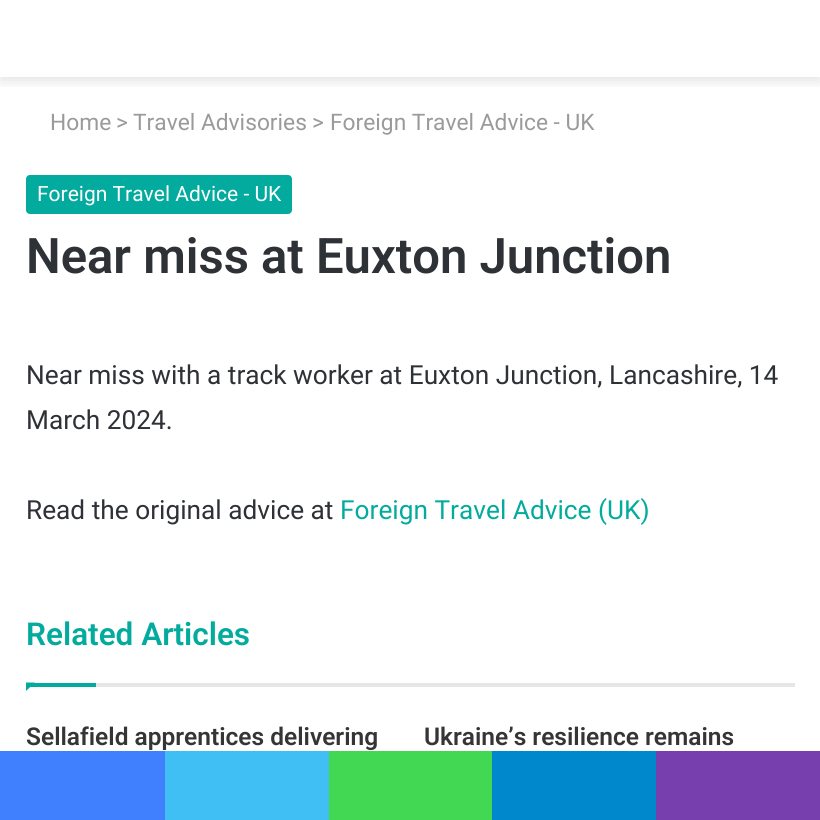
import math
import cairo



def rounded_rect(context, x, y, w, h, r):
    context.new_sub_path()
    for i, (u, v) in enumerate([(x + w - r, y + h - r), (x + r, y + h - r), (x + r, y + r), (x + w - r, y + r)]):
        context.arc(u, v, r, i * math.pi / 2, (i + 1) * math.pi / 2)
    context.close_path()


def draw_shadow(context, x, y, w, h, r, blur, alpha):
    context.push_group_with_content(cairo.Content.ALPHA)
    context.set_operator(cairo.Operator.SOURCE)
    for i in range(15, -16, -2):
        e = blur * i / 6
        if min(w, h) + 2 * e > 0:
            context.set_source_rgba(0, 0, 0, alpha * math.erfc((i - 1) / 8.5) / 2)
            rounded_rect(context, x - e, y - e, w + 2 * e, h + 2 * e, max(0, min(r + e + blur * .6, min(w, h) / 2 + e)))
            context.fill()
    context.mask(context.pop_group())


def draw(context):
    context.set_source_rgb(1, 1, 1)
    context.paint()
    context.save()
    context.rectangle(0, 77, 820, 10)
    context.clip()
    context.set_source_rgb(0, 0, 0)
    draw_shadow(context, 0, 5, 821, 77, 0, 6, 0.1)
    context.restore()
    context.set_source_rgb(3 / 255, 171 / 255, 158 / 255)
    rounded_rect(context, 26, 175, 266, 39, 4)
    context.fill()
    context.set_source_rgb(230 / 255, 230 / 255, 230 / 255)
    context.rectangle(96, 683, 699, 4)
    context.fill()
    context.set_source_rgb(3 / 255, 171 / 255, 158 / 255)
    context.new_path()
    context.move_to(26, 682.5)
    context.line_to(35, 682.5)
    context.line_to(26, 691)
    context.close_path()
    context.fill()
    context.rectangle(26, 683, 70, 4)
    context.fill()
    context.set_source_rgb(64 / 255, 128 / 255, 1)
    context.rectangle(0, 751, 165, 69)
    context.fill()
    context.set_source_rgb(64 / 255, 191 / 255, 245 / 255)
    context.rectangle(165, 751, 164, 69)
    context.fill()
    context.set_source_rgb(67 / 255, 216 / 255, 84 / 255)
    context.rectangle(329, 751, 163, 69)
    context.fill()
    context.set_source_rgb(0, 136 / 255, 204 / 255)
    context.rectangle(492, 751, 164, 69)
    context.fill()
    context.set_source_rgb(119 / 255, 62 / 255, 173 / 255)
    context.rectangle(656, 751, 164, 69)
    context.fill()
    context.select_font_face("Roboto")
    context.set_font_size(22.75)
    context.set_source_rgb(154 / 255, 154 / 255, 154 / 255)
    context.move_to(50, 130)
    context.show_text("Home")
    context.move_to(116, 130)
    context.show_text(">")
    context.move_to(133, 130)
    context.show_text("Travel Advisories")
    context.move_to(312, 130)
    context.show_text(">")
    context.move_to(330, 130)
    context.show_text("Foreign Travel Advice - UK")
    context.set_font_size(21)
    context.set_source_rgb(1, 1, 1)
    context.move_to(37, 201)
    context.show_text("Foreign Travel Advice - UK")
    context.select_font_face("Roboto SemiBold")
    context.set_font_size(49)
    context.set_source_rgb(46 / 255, 49 / 255, 54 / 255)
    context.move_to(26, 273)
    context.show_text("Near miss at Euxton Junction")
    context.select_font_face("Roboto")
    context.set_font_size(26.25)
    context.move_to(26, 384)
    context.show_text("Near miss with a track worker at Euxton Junction, Lancashire, 14")
    context.move_to(26, 429)
    context.show_text("March 2024.")
    context.move_to(26, 519)
    context.show_text("Read the original advice at")
    context.set_source_rgb(3 / 255, 171 / 255, 158 / 255)
    context.move_to(340, 519)
    context.show_text("Foreign Travel Advice (UK)")
    context.select_font_face("Roboto SemiBold")
    context.set_font_size(31.5)
    context.move_to(26, 645)
    context.show_text("Related Articles")
    context.set_font_size(24.5)
    context.set_source_rgb(53 / 255, 53 / 255, 53 / 255)
    context.move_to(26, 745)
    context.show_text("Sellafield apprentices delivering")
    context.move_to(424, 745)
    context.show_text("Ukraine’s resilience remains")


surface = cairo.ImageSurface(cairo.Format.RGB24, 820, 820)
context = cairo.Context(surface)
options = cairo.FontOptions()
options.set_hint_metrics(cairo.HintMetrics.OFF)
options.set_hint_style(cairo.HintStyle.NONE)
context.set_font_options(options)
context.set_miter_limit(4)
draw(context)
surface.write_to_png("out.png")
